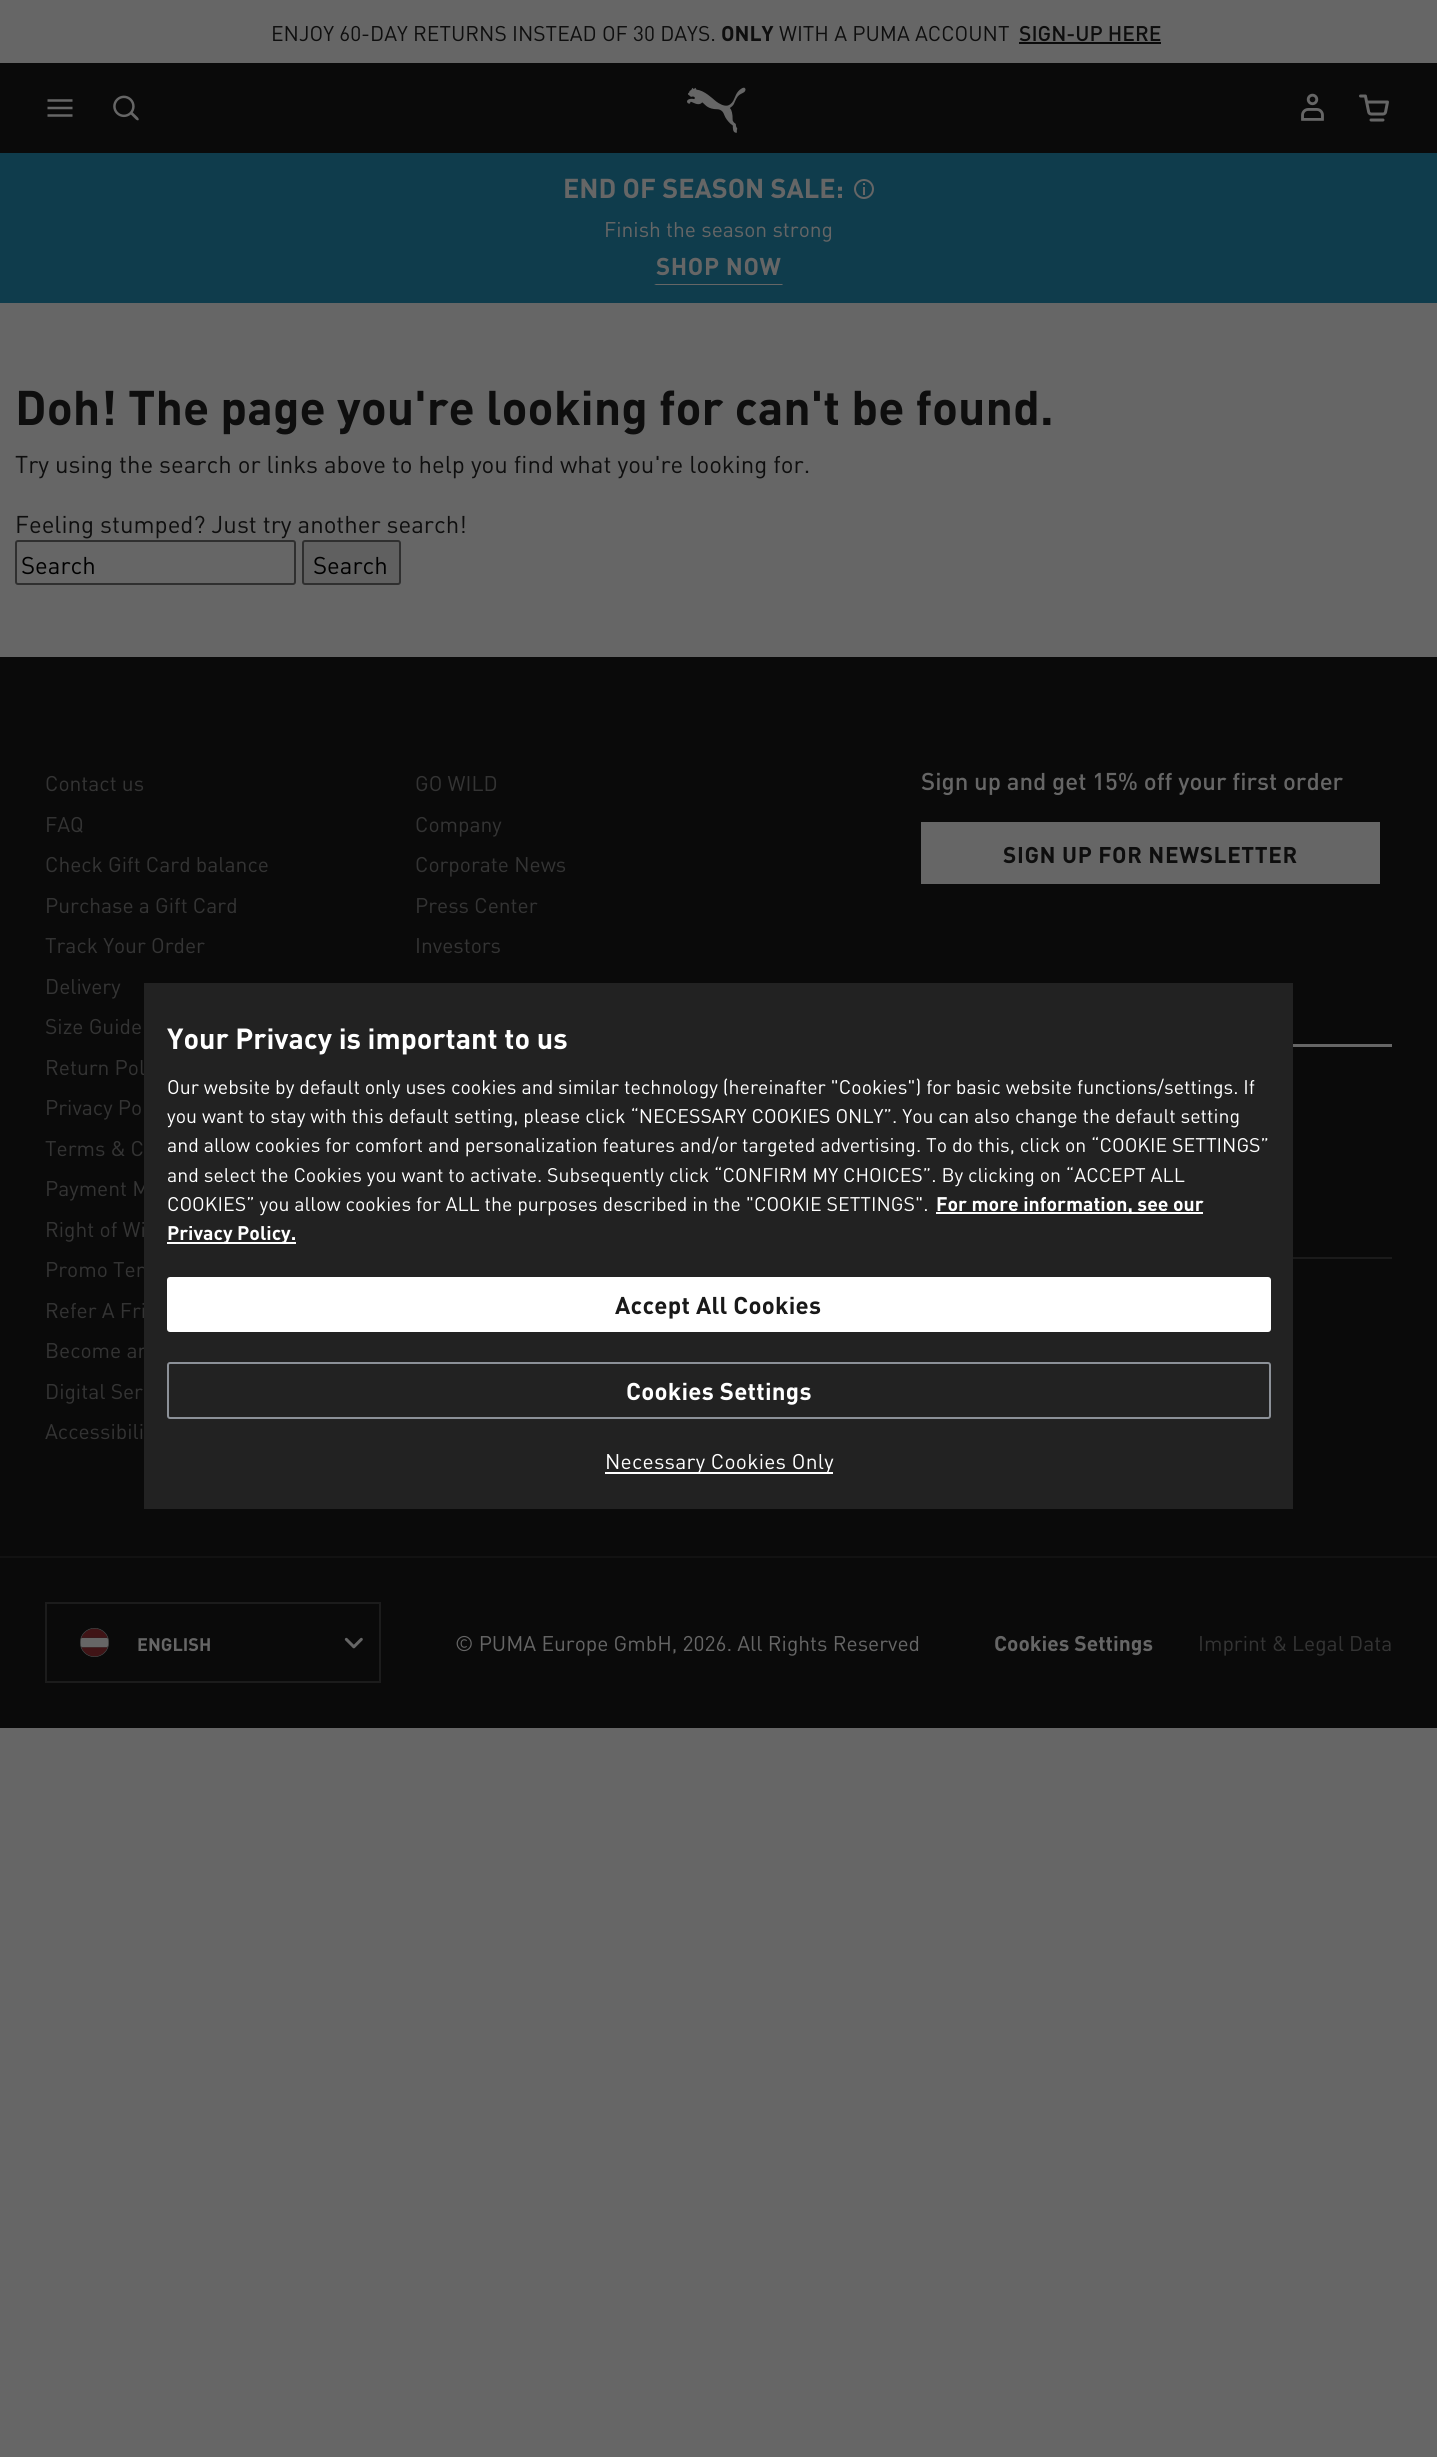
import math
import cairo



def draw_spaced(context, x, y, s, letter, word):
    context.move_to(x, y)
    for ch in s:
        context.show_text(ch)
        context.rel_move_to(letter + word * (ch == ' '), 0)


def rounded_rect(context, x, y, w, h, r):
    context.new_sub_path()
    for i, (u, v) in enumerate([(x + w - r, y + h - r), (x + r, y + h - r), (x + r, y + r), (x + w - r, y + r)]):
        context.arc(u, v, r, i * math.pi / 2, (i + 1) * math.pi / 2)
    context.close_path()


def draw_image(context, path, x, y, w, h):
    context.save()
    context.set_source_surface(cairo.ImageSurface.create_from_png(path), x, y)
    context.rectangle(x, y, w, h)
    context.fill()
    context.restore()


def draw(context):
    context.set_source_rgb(102 / 255, 102 / 255, 102 / 255)
    context.paint()
    context.set_source_rgb(10 / 255, 10 / 255, 10 / 255)
    context.rectangle(1019, 42, 142, 2)
    context.fill()
    context.rectangle(0, 63, 1437, 90)
    context.fill()
    draw_image(context, "images/1.png", 47, 99, 26, 18)
    draw_image(context, "images/2.png", 113, 95, 26, 26)
    draw_image(context, "images/3.png", 687, 87, 59, 46)
    draw_image(context, "images/4.png", 1301, 93, 23, 28)
    draw_image(context, "images/5.png", 1359, 94, 30, 28)
    context.set_source_rgb(15 / 255, 60 / 255, 76 / 255)
    context.rectangle(0, 153, 1437, 150)
    context.fill()
    draw_image(context, "images/6.png", 854, 179, 20, 20)
    context.set_source_rgb(102 / 255, 102 / 255, 102 / 255)
    context.new_path()
    context.move_to(783, 285)
    context.line_to(654, 285)
    context.line_to(656, 284)
    context.line_to(782, 284)
    context.close_path()
    context.fill()
    rounded_rect(context, 16, 541, 279, 43, 2)
    context.set_source_rgb(47 / 255, 47 / 255, 47 / 255)
    context.stroke()
    context.set_source_rgb(96 / 255, 96 / 255, 96 / 255)
    rounded_rect(context, 303, 541, 97, 43, 2)
    context.fill_preserve()
    context.set_source_rgb(47 / 255, 47 / 255, 47 / 255)
    context.stroke()
    context.set_source_rgb(10 / 255, 10 / 255, 10 / 255)
    context.rectangle(0, 657, 1437, 899)
    context.fill()
    context.set_source_rgb(102 / 255, 102 / 255, 102 / 255)
    context.rectangle(921, 822, 459, 62)
    context.fill()
    context.rectangle(1293, 1044, 99, 3)
    context.fill()
    context.set_source_rgb(27 / 255, 27 / 255, 27 / 255)
    context.rectangle(1293, 1257, 99, 2)
    context.fill()
    context.set_source_rgb(10 / 255, 10 / 255, 10 / 255)
    context.rectangle(0, 1558, 1437, 170)
    context.fill()
    context.set_source_rgb(18 / 255, 18 / 255, 18 / 255)
    context.rectangle(0, 1556, 1437, 2)
    context.fill()
    context.rectangle(46, 1603, 334, 79)
    context.set_source_rgb(28 / 255, 28 / 255, 28 / 255)
    context.stroke()
    draw_image(context, "images/7.png", 80, 1628, 29, 29)
    draw_image(context, "images/8.png", 344, 1637, 19, 12)
    context.select_font_face("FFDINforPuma")
    context.set_font_size(21)
    context.set_source_rgb(14 / 255, 14 / 255, 14 / 255)
    context.move_to(271, 41)
    context.show_text("ENJOY 60-DAY RETURNS INSTEAD OF 30 DAYS.")
    context.select_font_face("FFDINforPuma", cairo.FontSlant.NORMAL, cairo.FontWeight.BOLD)
    context.move_to(721, 41)
    context.show_text("ONLY")
    context.select_font_face("FFDINforPuma")
    context.move_to(779, 41)
    context.show_text("WITH A PUMA ACCOUNT")
    context.select_font_face("FFDINforPuma Medium")
    context.move_to(1019, 41)
    context.show_text("SIGN-UP HERE")
    context.select_font_face("FFDINforPuma", cairo.FontSlant.NORMAL, cairo.FontWeight.BOLD)
    context.set_font_size(27)
    context.set_source_rgb(102 / 255, 102 / 255, 102 / 255)
    context.move_to(563, 198)
    context.show_text("END OF SEASON SALE:")
    context.select_font_face("FFDINforPuma")
    context.set_font_size(21)
    context.move_to(604, 237)
    context.show_text("Finish the season strong")
    context.select_font_face("FFDINforPuma", cairo.FontSlant.NORMAL, cairo.FontWeight.BOLD)
    context.set_font_size(24)
    draw_spaced(context, 656, 275, "SHOP NOW", 0.6, 0)
    context.set_font_size(48)
    context.set_source_rgb(14 / 255, 14 / 255, 14 / 255)
    context.move_to(15, 425)
    context.show_text("Doh! The page you're looking for can't be found.")
    context.select_font_face("FFDINforPuma")
    context.set_font_size(24)
    context.move_to(15, 473)
    context.show_text("Try using the search or links above to help you find what you're looking for.")
    context.move_to(15, 533)
    context.show_text("Feeling stumped? Just try another search!")
    context.set_source_rgb(0, 0, 0)
    context.move_to(21, 574)
    context.show_text("Search")
    context.move_to(313, 574)
    context.show_text("Search")
    context.set_font_size(21)
    context.set_source_rgb(52 / 255, 52 / 255, 52 / 255)
    context.move_to(45, 791)
    context.show_text("Contact us")
    context.move_to(45, 832)
    context.show_text("FAQ")
    context.move_to(45, 872)
    context.show_text("Check Gift Card balance")
    context.move_to(45, 913)
    context.show_text("Purchase a Gift Card")
    context.move_to(45, 953)
    context.show_text("Track Your Order")
    context.move_to(45, 994)
    context.show_text("Delivery")
    context.move_to(45, 1034)
    context.show_text("Size Guide")
    context.move_to(45, 1075)
    context.show_text("Return Pol")
    context.move_to(45, 1115)
    context.show_text("Privacy Po")
    context.move_to(45, 1156)
    context.show_text("Terms & C")
    context.move_to(45, 1196)
    context.show_text("Payment M")
    context.move_to(45, 1237)
    context.show_text("Right of Wi")
    context.move_to(45, 1277)
    context.show_text("Promo Ter")
    context.move_to(45, 1318)
    context.show_text("Refer A Fri")
    context.move_to(45, 1358)
    context.show_text("Become an")
    context.move_to(45, 1399)
    context.show_text("Digital Ser")
    context.move_to(45, 1439)
    context.show_text("Accessibili")
    context.move_to(415, 791)
    context.show_text("GO WILD")
    context.move_to(415, 832)
    context.show_text("Company")
    context.move_to(415, 872)
    context.show_text("Corporate News")
    context.move_to(415, 913)
    context.show_text("Press Center")
    context.move_to(415, 953)
    context.show_text("Investors")
    context.select_font_face("FFDINforPuma Medium")
    context.set_font_size(24)
    context.set_source_rgb(102 / 255, 102 / 255, 102 / 255)
    context.move_to(921, 790)
    context.show_text("Sign up and get 15% off your first order")
    context.select_font_face("FFDINforPuma", cairo.FontSlant.NORMAL, cairo.FontWeight.BOLD)
    context.set_font_size(22.5)
    context.set_source_rgb(14 / 255, 14 / 255, 14 / 255)
    draw_spaced(context, 1003, 863, "SIGN UP FOR NEWSLETTER", 0.6, 0)
    context.set_font_size(18)
    context.set_source_rgb(102 / 255, 102 / 255, 102 / 255)
    context.move_to(137, 1651)
    context.show_text("ENGLISH")
    context.select_font_face("FFDINforPuma")
    context.set_font_size(21)
    context.move_to(455, 1651)
    context.show_text("© PUMA Europe GmbH, 2026. All Rights Reserved")
    context.select_font_face("FFDINforPuma", cairo.FontSlant.NORMAL, cairo.FontWeight.BOLD)
    context.move_to(994, 1651)
    context.show_text("Cookies Settings")
    context.select_font_face("FFDINforPuma")
    context.set_source_rgb(52 / 255, 52 / 255, 52 / 255)
    context.move_to(1198, 1651)
    context.show_text("Imprint & Legal Data")
    context.set_source_rgb(34 / 255, 34 / 255, 34 / 255)
    context.rectangle(144, 983, 1149, 526)
    context.fill()
    context.select_font_face("FFDINforPuma", cairo.FontSlant.NORMAL, cairo.FontWeight.BOLD)
    context.set_font_size(28.75)
    context.set_source_rgb(1, 1, 1)
    context.move_to(167, 1049)
    context.show_text("Your Privacy is important to us")
    context.select_font_face("FFDINforPuma")
    context.set_font_size(19.5)
    context.move_to(167, 1094)
    context.show_text("Our website by default only uses cookies and similar technology (hereinafter \"Cookies\") for basic website functions/settings. If")
    context.move_to(167, 1123)
    context.show_text("you want to stay with this default setting, please click “NECESSARY COOKIES ONLY”. You can also change the default setting")
    context.move_to(167, 1152)
    context.show_text("and allow cookies for comfort and personalization features and/or targeted advertising. To do this, click on “COOKIE SETTINGS”")
    context.move_to(167, 1182)
    context.show_text("and select the Cookies you want to activate. Subsequently click “CONFIRM MY CHOICES”. By clicking on “ACCEPT ALL")
    context.move_to(167, 1211)
    context.show_text("COOKIES” you allow cookies for ALL the purposes described in the \"COOKIE SETTINGS\".")
    context.rectangle(936, 1212, 267, 2)
    context.fill()
    context.select_font_face("FFDINforPuma", cairo.FontSlant.NORMAL, cairo.FontWeight.BOLD)
    context.move_to(936, 1211)
    context.show_text("For more information, see our")
    context.rectangle(167, 1242, 129, 2)
    context.fill()
    context.move_to(167, 1240)
    context.show_text("Privacy Policy.")
    rounded_rect(context, 168, 1278, 1102, 53, 2)
    context.fill_preserve()
    context.stroke()
    context.set_font_size(24)
    context.set_source_rgb(25 / 255, 25 / 255, 25 / 255)
    draw_spaced(context, 615, 1314, "Accept All Cookies", 0.25, 0)
    rounded_rect(context, 168, 1363, 1102, 55, 2)
    context.set_source_rgb(140 / 255, 145 / 255, 152 / 255)
    context.stroke()
    context.set_source_rgb(1, 1, 1)
    draw_spaced(context, 626, 1400, "Cookies Settings", 0.25, 0)
    context.rectangle(605, 1472, 228, 2)
    context.fill()
    context.select_font_face("FFDINforPuma")
    context.set_font_size(21)
    draw_spaced(context, 605, 1469, "Necessary Cookies Only", 0.25, 0)


surface = cairo.ImageSurface(cairo.Format.RGB24, 1437, 2457)
context = cairo.Context(surface)
options = cairo.FontOptions()
options.set_hint_metrics(cairo.HintMetrics.OFF)
options.set_hint_style(cairo.HintStyle.NONE)
context.set_font_options(options)
context.set_miter_limit(4)
draw(context)
surface.write_to_png("out.png")
